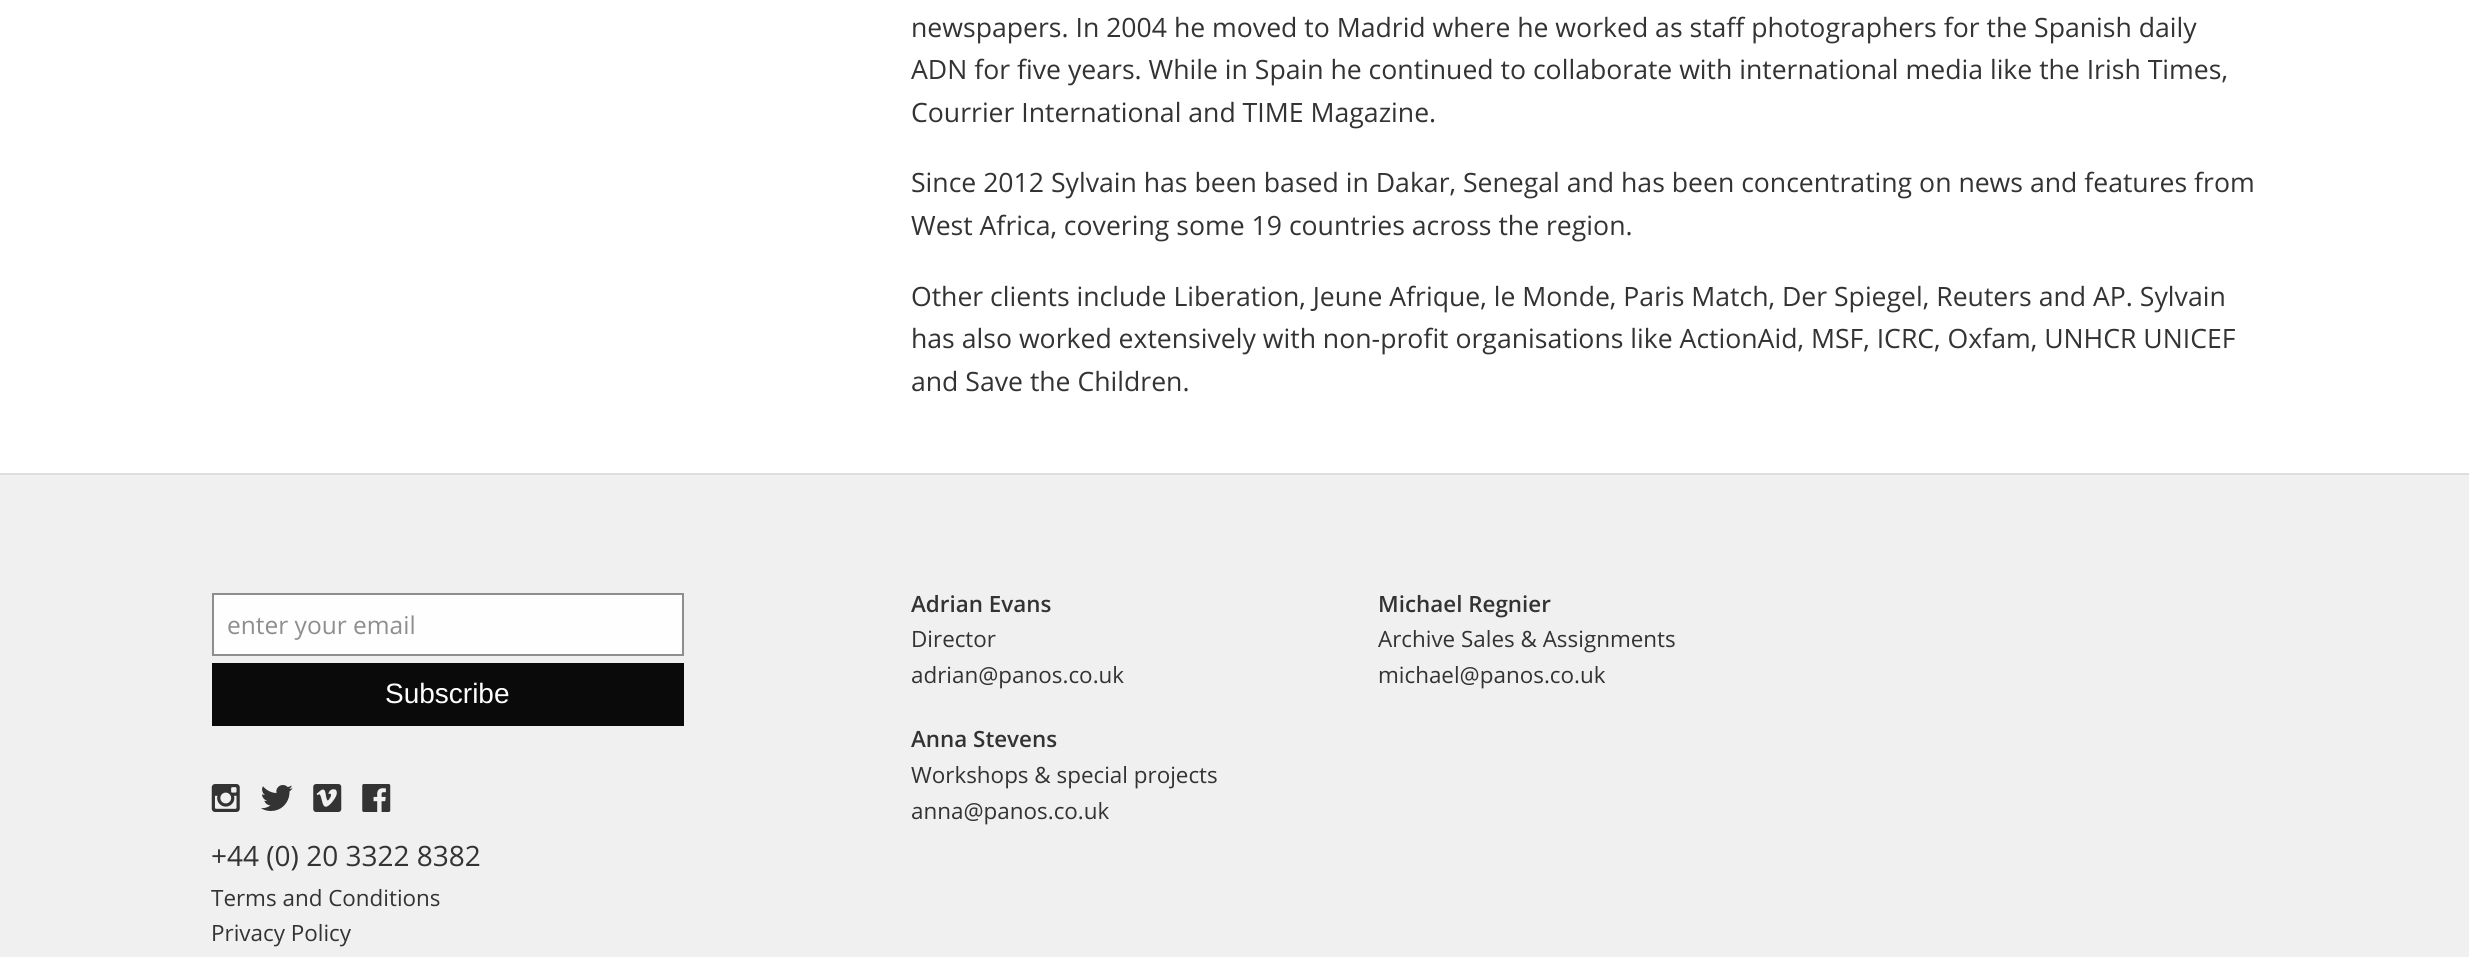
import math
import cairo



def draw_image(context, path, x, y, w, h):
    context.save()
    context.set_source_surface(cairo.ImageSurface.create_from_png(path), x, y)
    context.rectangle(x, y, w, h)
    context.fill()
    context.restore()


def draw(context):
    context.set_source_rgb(1, 1, 1)
    context.paint()
    context.set_source_rgb(240 / 255, 240 / 255, 240 / 255)
    context.rectangle(0, 475, 2469, 482)
    context.fill()
    context.set_source_rgb(221 / 255, 221 / 255, 221 / 255)
    context.rectangle(0, 473, 2469, 2)
    context.fill()
    context.set_source_rgb(254 / 255, 254 / 255, 254 / 255)
    context.rectangle(213, 594, 470, 61)
    context.fill_preserve()
    context.set_source_rgb(142 / 255, 142 / 255, 142 / 255)
    context.stroke()
    context.set_source_rgb(10 / 255, 10 / 255, 10 / 255)
    context.rectangle(212, 663, 472, 63)
    context.fill()
    draw_image(context, "images/1.png", 211, 784, 29, 28)
    draw_image(context, "images/2.png", 261, 785, 32, 26)
    draw_image(context, "images/3.png", 313, 784, 29, 28)
    draw_image(context, "images/4.png", 362, 784, 29, 28)
    context.select_font_face("Open Sans")
    context.set_font_size(26.6)
    context.set_source_rgb(51 / 255, 51 / 255, 51 / 255)
    context.move_to(911, 37)
    context.show_text("newspapers. In 2004 he moved to Madrid where he worked as staff photographers for the Spanish daily")
    context.move_to(911, 79)
    context.show_text("ADN for five years. While in Spain he continued to collaborate with international media like the Irish Times,")
    context.move_to(911, 122)
    context.show_text("Courrier International and TIME Magazine.")
    context.move_to(911, 192)
    context.show_text("Since 2012 Sylvain has been based in Dakar, Senegal and has been concentrating on news and features from")
    context.move_to(911, 235)
    context.show_text("West Africa, covering some 19 countries across the region.")
    context.move_to(911, 306)
    context.show_text("Other clients include Liberation, Jeune Afrique, le Monde, Paris Match, Der Spiegel, Reuters and AP. Sylvain")
    context.move_to(911, 348)
    context.show_text("has also worked extensively with non-profit organisations like ActionAid, MSF, ICRC, Oxfam, UNHCR UNICEF")
    context.move_to(911, 391)
    context.show_text("and Save the Children.")
    context.set_font_size(24.5)
    context.set_source_rgb(142 / 255, 142 / 255, 142 / 255)
    context.move_to(227, 634)
    context.show_text("enter your email")
    context.select_font_face("Liberation Sans")
    context.set_font_size(28)
    context.set_source_rgb(254 / 255, 254 / 255, 254 / 255)
    context.move_to(385, 703)
    context.show_text("Subscribe")
    context.select_font_face("Open Sans")
    context.set_source_rgb(51 / 255, 51 / 255, 51 / 255)
    context.move_to(211, 866)
    context.show_text("+44 (0) 20 3322 8382")
    context.set_font_size(22.4)
    context.move_to(211, 906)
    context.show_text("Terms and Conditions")
    context.move_to(211, 941)
    context.show_text("Privacy Policy")
    context.select_font_face("Open Sans SemiBold")
    context.move_to(911, 612)
    context.show_text("Adrian Evans")
    context.select_font_face("Open Sans")
    context.move_to(911, 647)
    context.show_text("Director")
    context.move_to(911, 683)
    context.show_text("adrian@panos.co.uk")
    context.select_font_face("Open Sans SemiBold")
    context.move_to(911, 747)
    context.show_text("Anna Stevens")
    context.select_font_face("Open Sans")
    context.move_to(911, 783)
    context.show_text("Workshops & special projects")
    context.move_to(911, 819)
    context.show_text("anna@panos.co.uk")
    context.select_font_face("Open Sans SemiBold")
    context.move_to(1378, 612)
    context.show_text("Michael Regnier")
    context.select_font_face("Open Sans")
    context.move_to(1378, 647)
    context.show_text("Archive Sales & Assignments")
    context.move_to(1378, 683)
    context.show_text("michael@panos.co.uk")


surface = cairo.ImageSurface(cairo.Format.RGB24, 2469, 957)
context = cairo.Context(surface)
options = cairo.FontOptions()
options.set_hint_metrics(cairo.HintMetrics.OFF)
options.set_hint_style(cairo.HintStyle.NONE)
context.set_font_options(options)
context.set_miter_limit(4)
draw(context)
surface.write_to_png("out.png")
